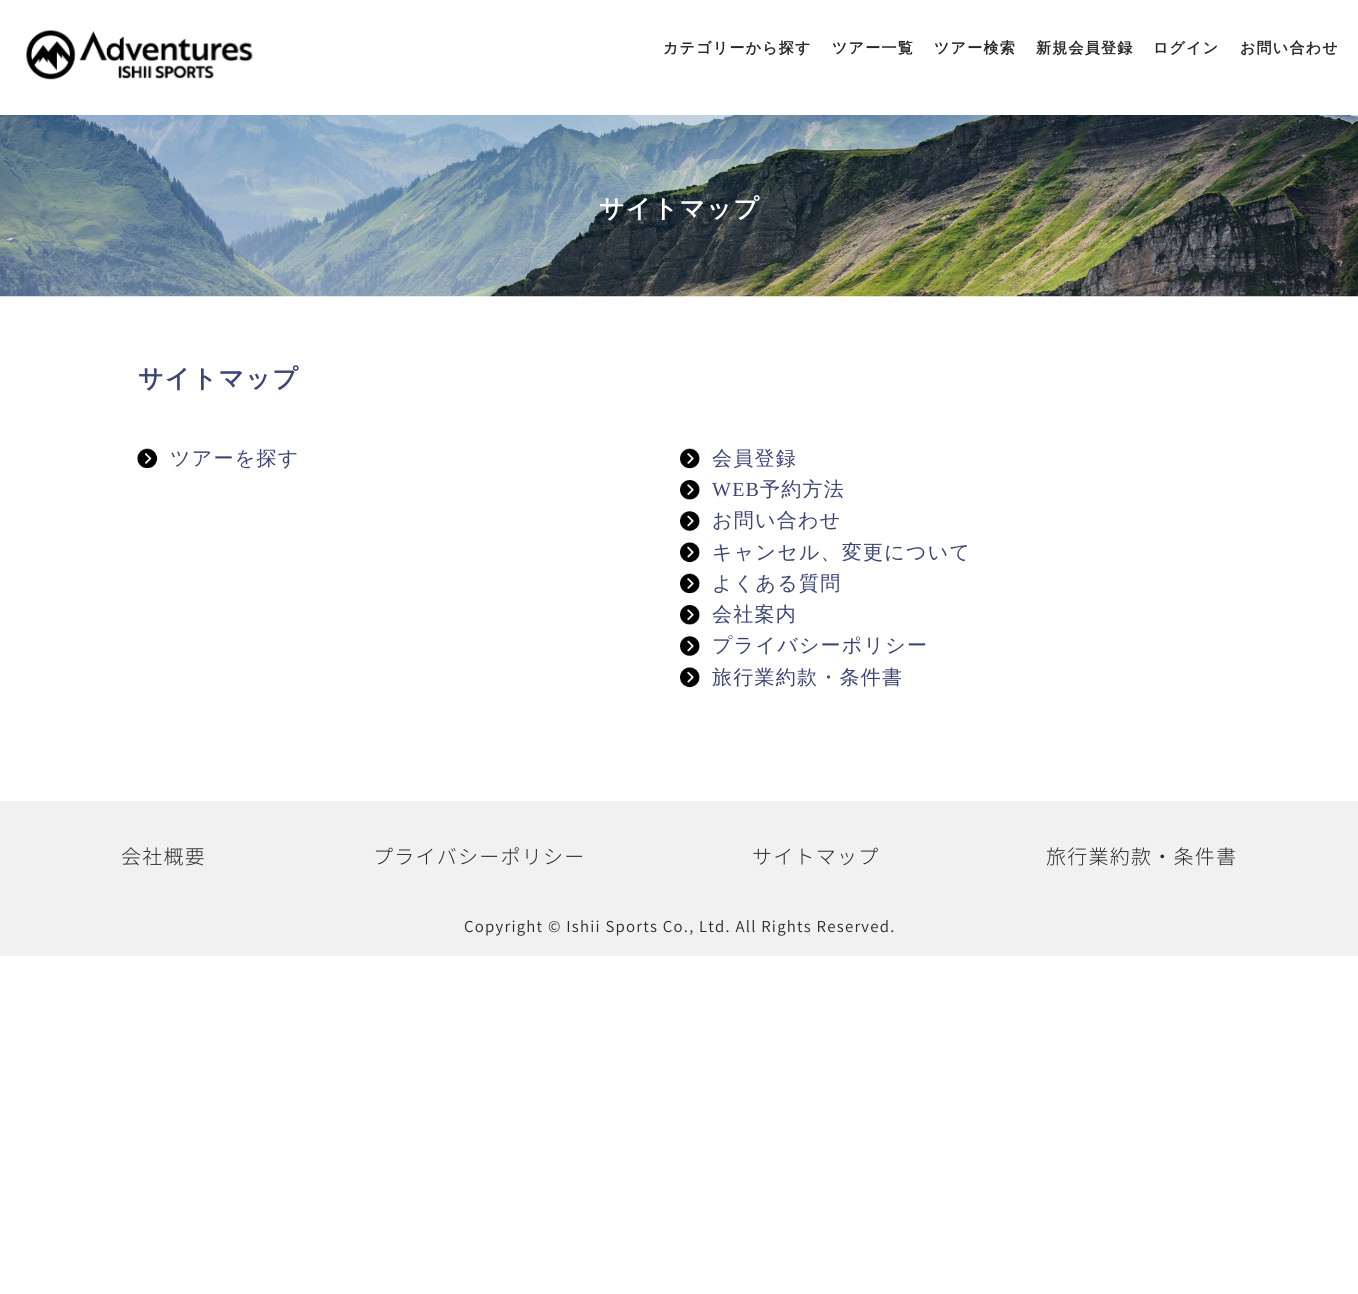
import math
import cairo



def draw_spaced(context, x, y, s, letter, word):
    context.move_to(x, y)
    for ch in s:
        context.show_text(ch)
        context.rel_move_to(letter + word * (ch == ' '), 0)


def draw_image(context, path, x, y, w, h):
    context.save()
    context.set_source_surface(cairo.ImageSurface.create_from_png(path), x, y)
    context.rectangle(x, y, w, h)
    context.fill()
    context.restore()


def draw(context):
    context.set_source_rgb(1, 1, 1)
    context.paint()
    draw_image(context, "images/1.png", 26, 30, 227, 50)
    draw_image(context, "images/2.png", 0, 115, 1358, 182)
    draw_image(context, "images/3.png", 137, 448, 21, 21)
    draw_image(context, "images/4.png", 680, 448, 20, 21)
    draw_image(context, "images/5.png", 680, 480, 20, 20)
    draw_image(context, "images/6.png", 680, 511, 20, 21)
    draw_image(context, "images/7.png", 680, 542, 20, 21)
    draw_image(context, "images/4.png", 680, 573, 20, 21)
    draw_image(context, "images/5.png", 680, 605, 20, 20)
    draw_image(context, "images/6.png", 680, 636, 20, 21)
    draw_image(context, "images/7.png", 680, 667, 20, 21)
    context.set_source_rgb(241 / 255, 241 / 255, 241 / 255)
    context.rectangle(0, 801, 1358, 155)
    context.fill()
    context.select_font_face("WenQuanYi Zen Hei", cairo.FontSlant.NORMAL, cairo.FontWeight.BOLD)
    context.set_font_size(15)
    context.set_source_rgb(41 / 255, 41 / 255, 41 / 255)
    draw_spaced(context, 663, 53, "カテゴリーから探す", 1.25, 0)
    draw_spaced(context, 832, 53, "ツアー一覧", 1.25, 0)
    draw_spaced(context, 934, 53, "ツアー検索", 1.25, 0)
    draw_spaced(context, 1036, 53, "新規会員登録", 1.25, 0)
    draw_spaced(context, 1153, 53, "ログイン", 1.25, 0)
    draw_spaced(context, 1240, 53, "お問い合わせ", 1.25, 0)
    context.set_font_size(25)
    context.set_source_rgb(1, 1, 1)
    draw_spaced(context, 599, 217, "サイトマップ", 1.25, 0)
    context.set_source_rgb(59 / 255, 70 / 255, 117 / 255)
    draw_spaced(context, 138, 387, "サイトマップ", 1.25, 0)
    context.select_font_face("WenQuanYi Zen Hei Medium")
    context.set_font_size(20)
    draw_spaced(context, 170, 465, "ツアーを探す", 1.25, 0)
    draw_spaced(context, 712, 465, "会員登録", 1.25, 0)
    context.select_font_face("Liberation Serif")
    draw_spaced(context, 712, 496, "WEB", 1.25, 0)
    context.select_font_face("WenQuanYi Zen Hei Medium")
    draw_spaced(context, 760, 496, "予約方法", 1.25, 0)
    draw_spaced(context, 712, 527, "お問い合わせ", 1.25, 0)
    draw_spaced(context, 712, 559, "キャンセル、変更について", 1.25, 0)
    draw_spaced(context, 712, 590, "よくある質問", 1.25, 0)
    draw_spaced(context, 712, 621, "会社案内", 1.25, 0)
    draw_spaced(context, 712, 652, "プライバシーポリシー", 1.25, 0)
    draw_spaced(context, 712, 684, "旅行業約款・条件書", 1.25, 0)
    context.select_font_face("Noto Sans JP Light")
    context.set_source_rgb(41 / 255, 41 / 255, 41 / 255)
    draw_spaced(context, 121, 864, "会社概要", 1.25, 0)
    draw_spaced(context, 373, 864, "プライバシーポリシー", 1.25, 0)
    draw_spaced(context, 752, 864, "サイトマップ", 1.25, 0)
    draw_spaced(context, 1046, 864, "旅行業約款・条件書", 1.25, 0)
    context.select_font_face("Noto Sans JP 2 Light")
    context.set_font_size(15)
    draw_spaced(context, 464, 932, "Copyright © Ishii Sports Co., Ltd. All Rights Reserved.", 1.25, 0)


surface = cairo.ImageSurface(cairo.Format.RGB24, 1358, 1294)
context = cairo.Context(surface)
options = cairo.FontOptions()
options.set_hint_metrics(cairo.HintMetrics.OFF)
options.set_hint_style(cairo.HintStyle.NONE)
context.set_font_options(options)
context.set_miter_limit(4)
draw(context)
surface.write_to_png("out.png")
